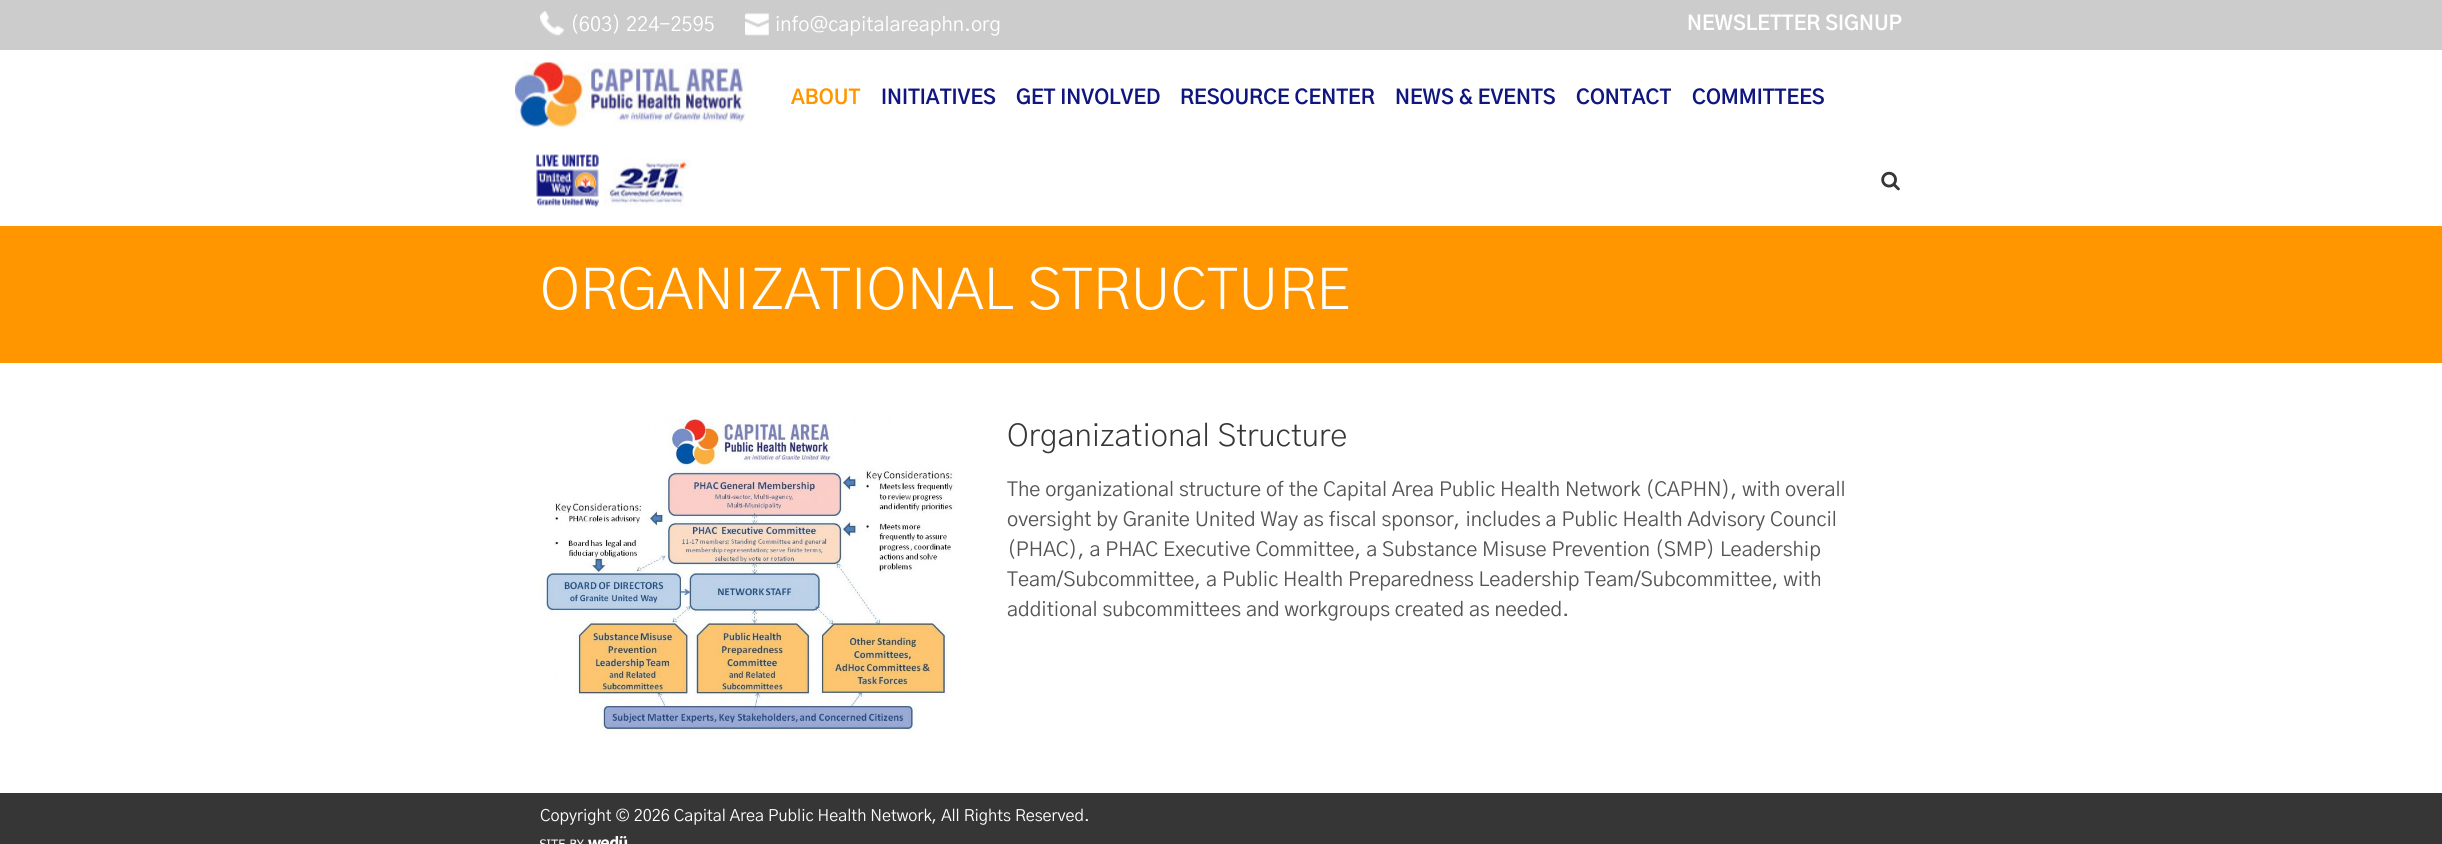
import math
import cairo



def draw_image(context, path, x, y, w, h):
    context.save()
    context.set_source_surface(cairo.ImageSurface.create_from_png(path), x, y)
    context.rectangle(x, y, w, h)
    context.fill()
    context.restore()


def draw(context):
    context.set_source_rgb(1, 1, 1)
    context.paint()
    context.set_source_rgb(204 / 255, 204 / 255, 204 / 255)
    context.rectangle(0, 0, 2442, 50)
    context.fill()
    draw_image(context, "images/1.png", 540, 11, 24, 25)
    draw_image(context, "images/2.png", 745, 13, 24, 23)
    draw_image(context, "images/3.png", 515, 62, 230, 66)
    draw_image(context, "images/4.png", 536, 154, 63, 53)
    draw_image(context, "images/5.png", 604, 158, 87, 49)
    draw_image(context, "images/6.png", 1881, 171, 19, 20)
    context.set_source_rgb(1, 150 / 255, 0)
    context.rectangle(0, 226, 2442, 137)
    context.fill()
    draw_image(context, "images/7.png", 540, 416, 415, 319)
    context.set_source_rgb(54 / 255, 54 / 255, 54 / 255)
    context.rectangle(0, 793, 2442, 51)
    context.fill()
    draw_image(context, "images/8.png", 540, 836, 88, 8)
    context.select_font_face("Gothic A1")
    context.set_font_size(20)
    context.set_source_rgb(1, 1, 1)
    context.move_to(570, 31)
    context.show_text("(603) 224-2595")
    context.move_to(775, 31)
    context.show_text("info@capitalareaphn.org")
    context.select_font_face("Gothic A1", cairo.FontSlant.NORMAL, cairo.FontWeight.BOLD)
    context.move_to(1687, 30)
    context.show_text("NEWSLETTER SIGNUP")
    context.set_source_rgb(1, 150 / 255, 0)
    context.move_to(791, 104)
    context.show_text("ABOUT")
    context.set_source_rgb(16 / 255, 22 / 255, 127 / 255)
    context.move_to(881, 104)
    context.show_text("INITIATIVES")
    context.move_to(1016, 104)
    context.show_text("GET INVOLVED")
    context.move_to(1180, 104)
    context.show_text("RESOURCE CENTER")
    context.move_to(1395, 104)
    context.show_text("NEWS & EVENTS")
    context.move_to(1576, 104)
    context.show_text("CONTACT")
    context.move_to(1692, 104)
    context.show_text("COMMITTEES")
    context.select_font_face("Gothic A1 Light")
    context.set_font_size(57.5)
    context.set_source_rgb(1, 1, 1)
    context.move_to(540, 309)
    context.show_text("ORGANIZATIONAL STRUCTURE")
    context.set_font_size(31.25)
    context.set_source_rgb(54 / 255, 54 / 255, 54 / 255)
    context.move_to(1007, 446)
    context.show_text("Organizational Structure")
    context.select_font_face("Gothic A1")
    context.set_font_size(20)
    context.set_source_rgb(85 / 255, 85 / 255, 85 / 255)
    context.move_to(1007, 496)
    context.show_text("The organizational structure of the Capital Area Public Health Network (CAPHN), with overall")
    context.move_to(1007, 526)
    context.show_text("oversight by Granite United Way as fiscal sponsor, includes a Public Health Advisory Council")
    context.move_to(1007, 556)
    context.show_text("(PHAC), a PHAC Executive Committee, a Substance Misuse Prevention (SMP) Leadership")
    context.move_to(1007, 586)
    context.show_text("Team/Subcommittee, a Public Health Preparedness Leadership Team/Subcommittee, with")
    context.move_to(1007, 616)
    context.show_text("additional subcommittees and workgroups created as needed.")
    context.set_font_size(16.25)
    context.set_source_rgb(1, 1, 1)
    context.move_to(540, 821)
    context.show_text("Copyright © 2026 Capital Area Public Health Network, All Rights Reserved.")


surface = cairo.ImageSurface(cairo.Format.RGB24, 2442, 844)
context = cairo.Context(surface)
options = cairo.FontOptions()
options.set_hint_metrics(cairo.HintMetrics.OFF)
options.set_hint_style(cairo.HintStyle.NONE)
context.set_font_options(options)
context.set_miter_limit(4)
draw(context)
surface.write_to_png("out.png")
